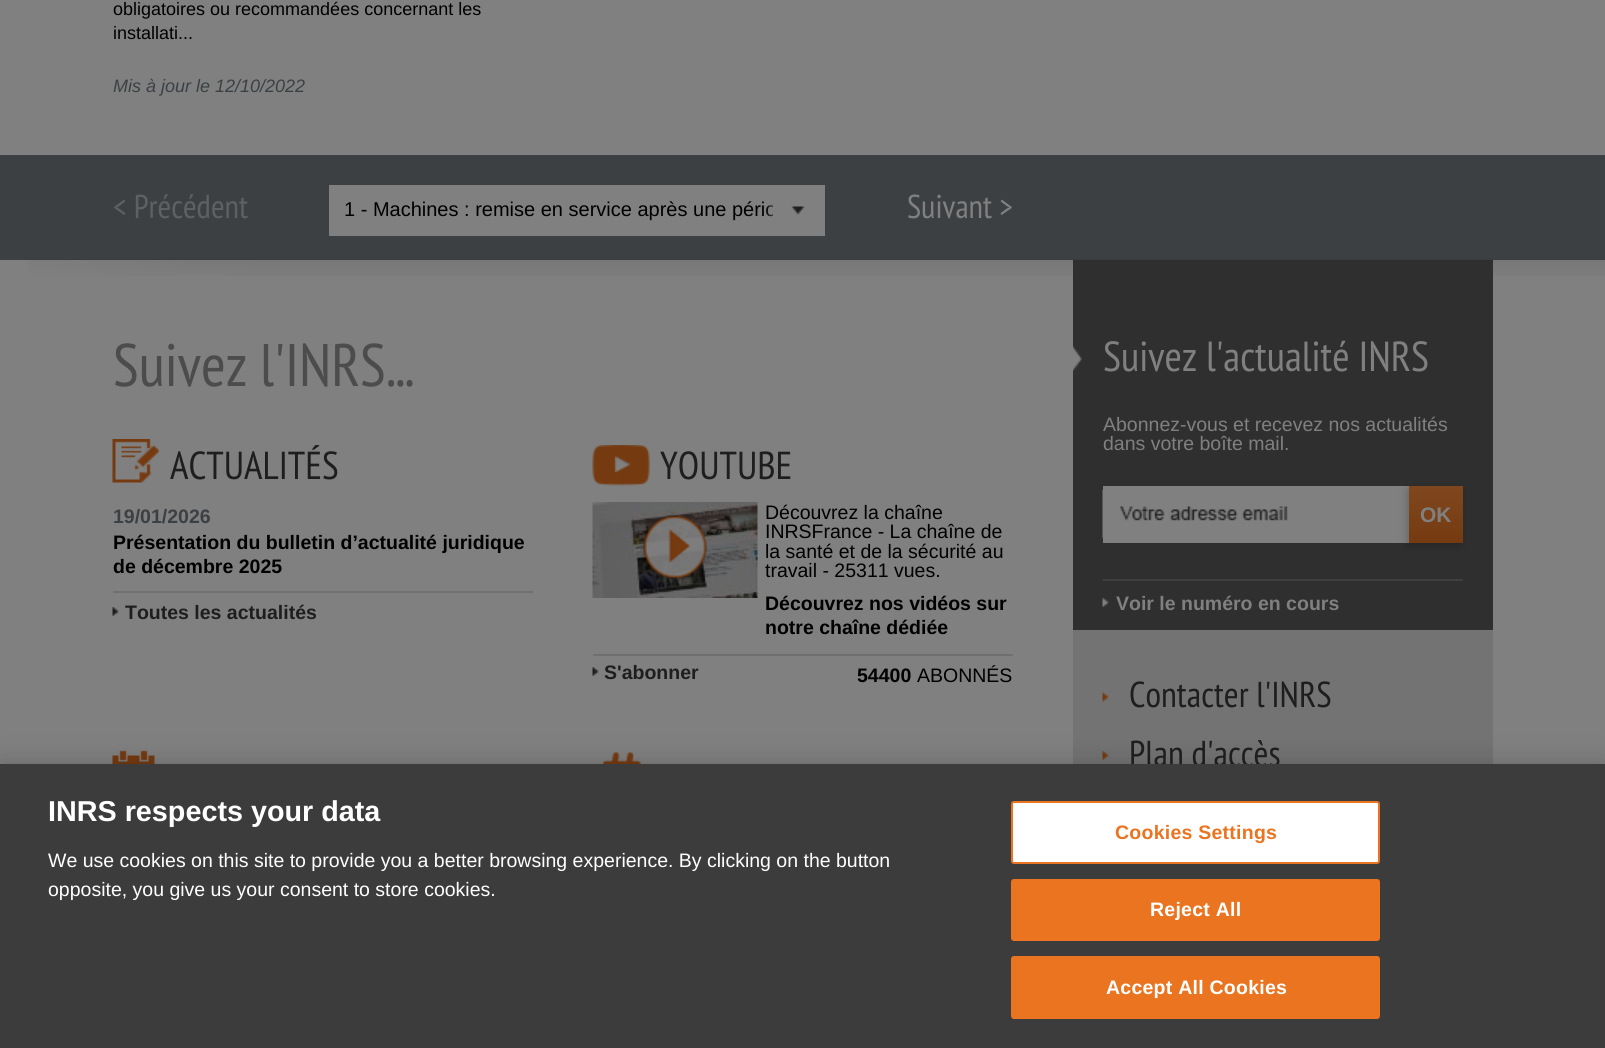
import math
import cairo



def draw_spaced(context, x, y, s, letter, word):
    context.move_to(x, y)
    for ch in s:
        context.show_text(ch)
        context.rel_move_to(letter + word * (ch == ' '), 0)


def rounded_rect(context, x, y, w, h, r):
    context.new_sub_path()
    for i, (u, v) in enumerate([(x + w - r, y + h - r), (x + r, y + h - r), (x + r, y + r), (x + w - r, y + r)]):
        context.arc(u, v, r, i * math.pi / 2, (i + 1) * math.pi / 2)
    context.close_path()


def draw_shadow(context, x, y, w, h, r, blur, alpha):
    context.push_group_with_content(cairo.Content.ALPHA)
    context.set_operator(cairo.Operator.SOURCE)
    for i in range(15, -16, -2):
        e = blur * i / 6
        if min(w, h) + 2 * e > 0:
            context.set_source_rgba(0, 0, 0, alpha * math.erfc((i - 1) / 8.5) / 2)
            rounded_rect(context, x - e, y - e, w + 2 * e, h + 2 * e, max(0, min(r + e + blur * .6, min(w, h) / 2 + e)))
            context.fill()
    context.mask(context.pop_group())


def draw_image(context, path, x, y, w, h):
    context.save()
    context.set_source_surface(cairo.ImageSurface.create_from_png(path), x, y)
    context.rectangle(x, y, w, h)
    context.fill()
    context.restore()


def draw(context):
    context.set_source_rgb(128 / 255, 128 / 255, 128 / 255)
    context.paint()
    context.set_source_rgb(60 / 255, 64 / 255, 67 / 255)
    context.rectangle(0, 155, 1605, 105)
    context.fill()
    context.set_source_rgb(128 / 255, 128 / 255, 128 / 255)
    context.rectangle(329, 185, 496, 51)
    context.fill()
    draw_image(context, "images/2.png", 28, 259, 1577, 17)
    draw_image(context, "images/3.png", 112, 439, 47, 44)
    context.set_source_rgb(112 / 255, 112 / 255, 112 / 255)
    context.rectangle(113, 591, 420, 2)
    context.fill()
    draw_image(context, "images/4.png", 112, 607, 7, 9)
    draw_image(context, "images/5.png", 592, 445, 58, 41)
    context.rectangle(593, 654, 420, 2)
    context.fill()
    draw_image(context, "images/6.png", 592, 502, 166, 96)
    draw_image(context, "images/7.png", 640, 515, 67, 68)
    draw_image(context, "images/8.png", 592, 667, 7, 9)
    draw_image(context, "images/9.png", 112, 750, 43, 14)
    draw_image(context, "images/10.png", 602, 752, 39, 12)
    context.set_source_rgb(47 / 255, 47 / 255, 47 / 255)
    context.rectangle(1073, 260, 420, 370)
    context.fill()
    draw_image(context, "images/11.png", 1073, 346, 9, 26)
    context.set_source_rgb(128 / 255, 128 / 255, 128 / 255)
    context.rectangle(1103, 486, 306, 57)
    context.fill()
    draw_image(context, "images/12.png", 1102, 490, 186, 48)
    context.set_source_rgb(0, 0, 0)
    draw_shadow(context, 1407, 489, 54, 57, 0, 4, 0.2)
    gradient = cairo.LinearGradient(1436, 486, 1436, 543)
    gradient.add_color_stop_rgba(0, 128 / 255, 71 / 255, 30 / 255, 1)
    gradient.add_color_stop_rgba(1, 117 / 255, 58 / 255, 16 / 255, 1)
    context.set_source(gradient)
    context.rectangle(1409, 486, 54, 57)
    context.fill()
    context.set_source_rgb(63 / 255, 63 / 255, 63 / 255)
    context.rectangle(1103, 579, 360, 2)
    context.fill()
    draw_image(context, "images/13.png", 1102, 598, 7, 9)
    context.set_source_rgb(115 / 255, 115 / 255, 115 / 255)
    context.rectangle(1073, 630, 420, 134)
    context.fill()
    draw_image(context, "images/14.png", 1102, 692, 7, 10)
    draw_image(context, "images/15.png", 1102, 751, 7, 9)
    context.set_source_rgb(0, 0, 0)
    draw_shadow(context, 0, 764, 1605, 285, 0, 13.5, 0.2)
    context.select_font_face("Liberation Sans")
    context.set_font_size(18)
    context.set_source_rgb(0, 0, 0)
    context.move_to(113, 15)
    context.show_text("obligatoires ou recommandées concernant les")
    context.move_to(113, 39)
    context.show_text("installati...")
    context.select_font_face("Liberation Sans", cairo.FontSlant.ITALIC)
    context.set_source_rgb(60 / 255, 64 / 255, 67 / 255)
    context.move_to(113, 92)
    context.show_text("Mis à jour le 12/10/2022")
    context.select_font_face("PT Sans Narrow")
    context.set_font_size(33)
    context.set_source_rgb(94 / 255, 96 / 255, 98 / 255)
    context.move_to(113, 218)
    context.show_text("< Précédent")
    context.save()
    context.rectangle(344, 198, 429, 24)
    context.clip()
    context.select_font_face("Liberation Sans")
    context.set_font_size(20)
    context.set_source_rgb(0, 0, 0)
    context.move_to(344, 216)
    context.show_text("1 - Machines : remise en service après une pério")
    context.restore()
    draw_image(context, "images/1.png", 766, 205, 39, 12)
    context.set_source_rgb(128 / 255, 128 / 255, 128 / 255)
    context.move_to(907, 218)
    context.show_text("Suivant >")
    context.set_font_size(60)
    context.set_source_rgb(76 / 255, 76 / 255, 76 / 255)
    context.move_to(113, 386)
    context.show_text("Suivez l'INRS...")
    context.set_font_size(39)
    context.set_source_rgb(30 / 255, 30 / 255, 30 / 255)
    context.move_to(170, 479)
    context.show_text("ACTUALITÉS")
    context.select_font_face("Liberation Sans", cairo.FontSlant.NORMAL, cairo.FontWeight.BOLD)
    context.set_font_size(19.5)
    context.set_source_rgb(60 / 255, 64 / 255, 67 / 255)
    context.move_to(113, 523)
    context.show_text("19/01/2026")
    context.set_source_rgb(0, 0, 0)
    context.move_to(113, 549)
    context.show_text("Présentation du bulletin d’actualité juridique")
    context.move_to(113, 573)
    context.show_text("de décembre 2025")
    context.set_source_rgb(30 / 255, 30 / 255, 30 / 255)
    context.move_to(125, 619)
    context.show_text("Toutes les actualités")
    context.select_font_face("PT Sans Narrow")
    context.set_font_size(39)
    context.move_to(660, 479)
    context.show_text("YOUTUBE")
    context.select_font_face("Liberation Sans")
    context.set_font_size(19.5)
    context.set_source_rgb(0, 0, 0)
    context.move_to(765, 519)
    context.show_text("Découvrez la chaîne")
    context.move_to(765, 538)
    context.show_text("INRSFrance - La chaîne de")
    context.move_to(765, 558)
    context.show_text("la santé et de la sécurité au")
    context.move_to(765, 577)
    context.show_text("travail - 25311 vues.")
    context.select_font_face("Liberation Sans", cairo.FontSlant.NORMAL, cairo.FontWeight.BOLD)
    context.move_to(765, 610)
    context.show_text("Découvrez nos vidéos sur")
    context.move_to(765, 634)
    context.show_text("notre chaîne dédiée")
    context.set_source_rgb(30 / 255, 30 / 255, 30 / 255)
    context.move_to(604, 679)
    context.show_text("S'abonner")
    context.set_source_rgb(0, 0, 0)
    context.move_to(857, 682)
    context.show_text("54400")
    context.select_font_face("Liberation Sans")
    context.move_to(917, 682)
    context.show_text("ABONNÉS")
    context.select_font_face("PT Sans Narrow")
    context.set_font_size(42)
    context.set_source_rgb(128 / 255, 128 / 255, 128 / 255)
    context.move_to(1103, 371)
    context.show_text("Suivez l'actualité INRS")
    context.select_font_face("Liberation Sans")
    context.set_font_size(19.5)
    context.move_to(1103, 431)
    context.show_text("Abonnez-vous et recevez nos actualités")
    context.move_to(1103, 450)
    context.show_text("dans votre boîte mail.")
    context.select_font_face("Liberation Sans", cairo.FontSlant.NORMAL, cairo.FontWeight.BOLD)
    context.set_font_size(21)
    context.move_to(1420, 522)
    context.show_text("OK")
    context.set_font_size(19.5)
    context.move_to(1116, 610)
    context.show_text("Voir le numéro en cours")
    context.select_font_face("PT Sans Narrow")
    context.set_font_size(36)
    context.set_source_rgb(30 / 255, 30 / 255, 30 / 255)
    context.move_to(1129, 707)
    context.show_text("Contacter l'INRS")
    context.move_to(1129, 766)
    context.show_text("Plan d'accès")
    context.set_source_rgb(60 / 255, 60 / 255, 60 / 255)
    context.rectangle(0, 764, 1605, 284)
    context.fill()
    context.select_font_face("Liberation Sans", cairo.FontSlant.NORMAL, cairo.FontWeight.BOLD)
    context.set_font_size(28.75)
    context.set_source_rgb(1, 1, 1)
    context.move_to(48, 821)
    context.show_text("INRS respects your data")
    context.select_font_face("Liberation Sans")
    context.set_font_size(19.5)
    context.move_to(48, 867)
    context.show_text("We use cookies on this site to provide you a better browsing experience. By clicking on the button")
    context.move_to(48, 896)
    context.show_text("opposite, you give us your consent to store cookies.")
    rounded_rect(context, 1012, 802, 367, 61, 2)
    context.fill_preserve()
    context.set_source_rgb(234 / 255, 116 / 255, 32 / 255)
    context.stroke()
    context.select_font_face("Liberation Sans", cairo.FontSlant.NORMAL, cairo.FontWeight.BOLD)
    draw_spaced(context, 1115, 839, "Cookies Settings", 0.25, 0)
    rounded_rect(context, 1012, 880, 367, 60, 2)
    context.fill_preserve()
    context.stroke()
    context.set_source_rgb(1, 1, 1)
    draw_spaced(context, 1150, 916, "Reject All", 0.25, 0)
    context.set_source_rgb(234 / 255, 116 / 255, 32 / 255)
    rounded_rect(context, 1012, 957, 367, 61, 2)
    context.fill_preserve()
    context.stroke()
    context.set_source_rgb(1, 1, 1)
    draw_spaced(context, 1106, 994, "Accept All Cookies", 0.25, 0)


surface = cairo.ImageSurface(cairo.Format.RGB24, 1605, 1048)
context = cairo.Context(surface)
options = cairo.FontOptions()
options.set_hint_metrics(cairo.HintMetrics.OFF)
options.set_hint_style(cairo.HintStyle.NONE)
context.set_font_options(options)
context.set_miter_limit(4)
draw(context)
surface.write_to_png("out.png")
